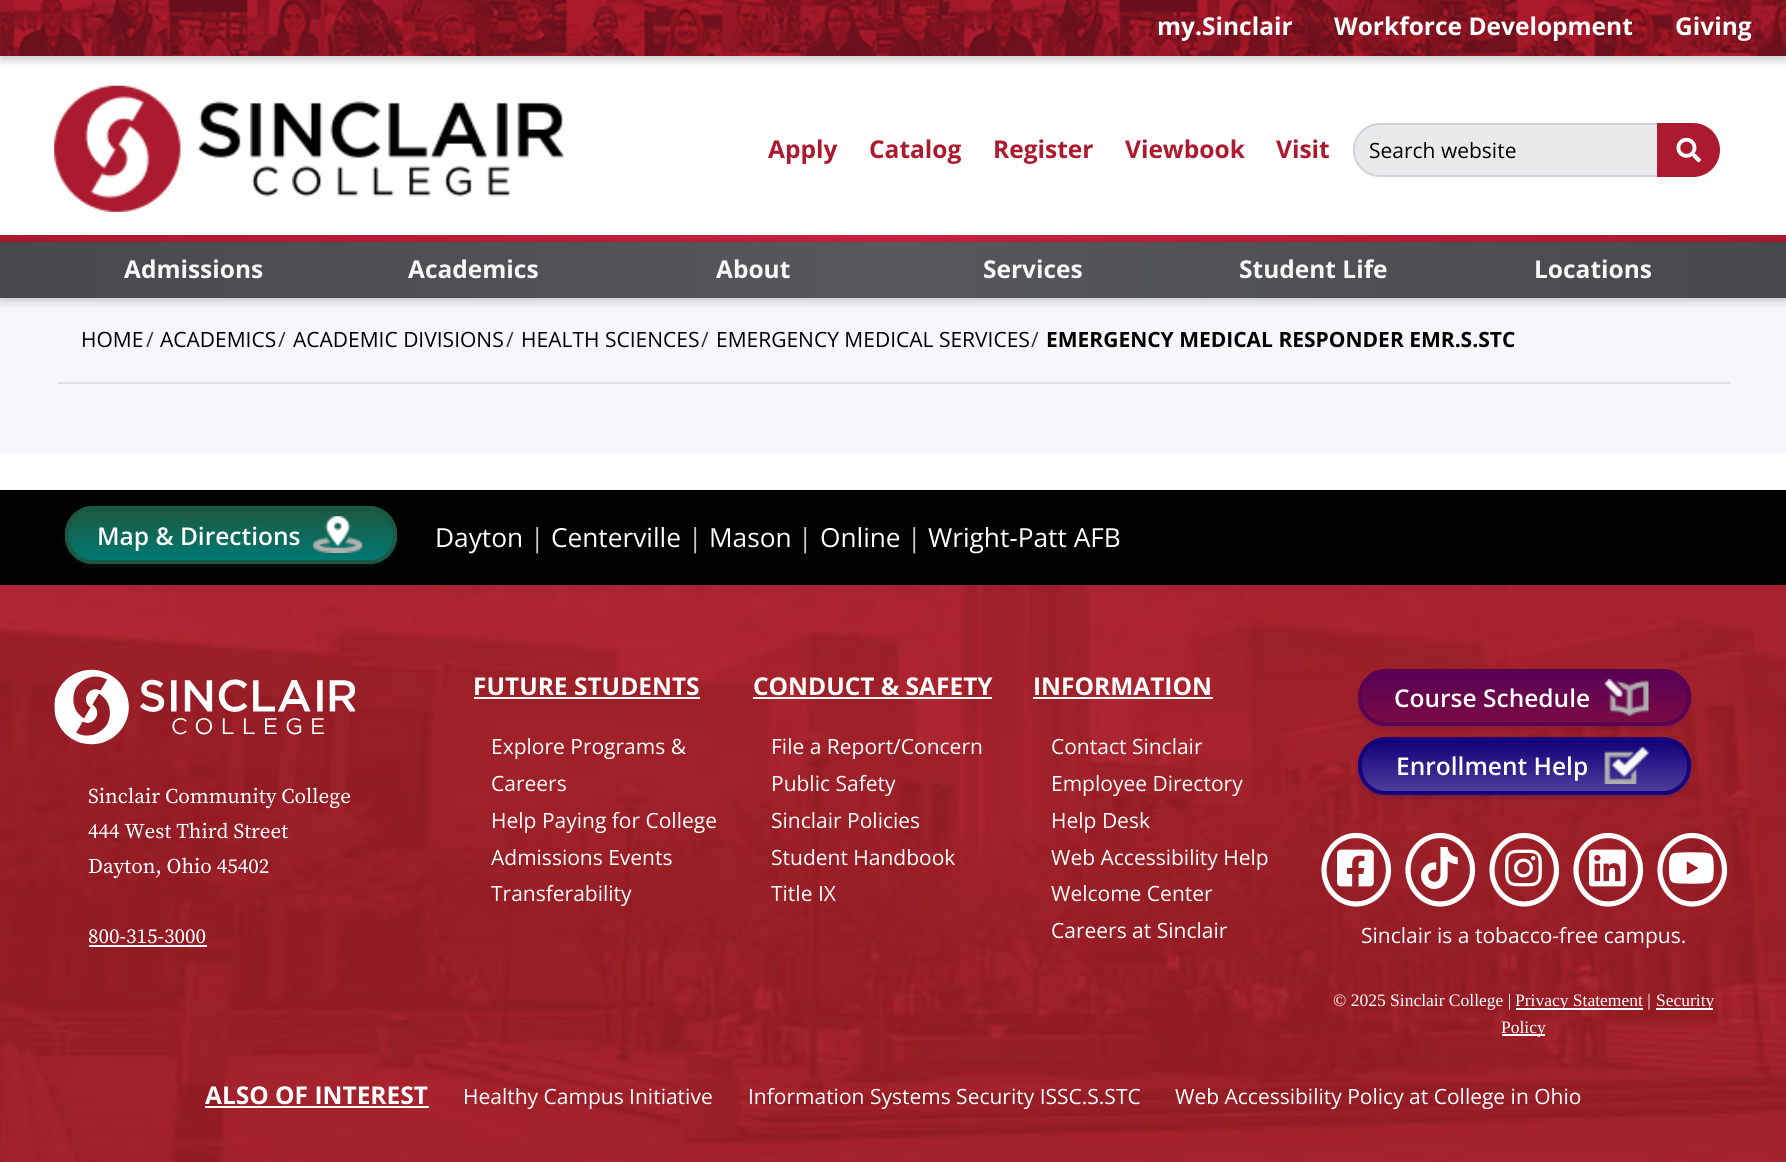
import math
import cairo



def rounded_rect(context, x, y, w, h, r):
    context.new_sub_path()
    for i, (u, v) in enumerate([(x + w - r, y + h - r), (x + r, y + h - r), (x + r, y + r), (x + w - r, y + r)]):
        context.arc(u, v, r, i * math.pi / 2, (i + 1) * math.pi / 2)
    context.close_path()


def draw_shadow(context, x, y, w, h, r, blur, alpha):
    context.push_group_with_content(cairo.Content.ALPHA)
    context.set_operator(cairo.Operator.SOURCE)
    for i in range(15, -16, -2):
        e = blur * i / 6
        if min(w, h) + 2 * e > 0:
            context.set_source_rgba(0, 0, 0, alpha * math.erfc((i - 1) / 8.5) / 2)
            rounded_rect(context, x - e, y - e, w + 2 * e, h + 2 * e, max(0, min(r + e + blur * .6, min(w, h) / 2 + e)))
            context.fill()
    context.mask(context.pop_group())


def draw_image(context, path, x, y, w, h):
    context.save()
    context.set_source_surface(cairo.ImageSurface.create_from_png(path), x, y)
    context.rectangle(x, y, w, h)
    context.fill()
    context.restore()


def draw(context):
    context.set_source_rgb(1, 1, 1)
    context.paint()
    context.set_source_rgb(0, 0, 0)
    draw_shadow(context, 0, 4, 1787, 56, 0, 4.5, 0.21)
    draw_image(context, "images/1.png", 0, 0, 1786, 56)
    draw_image(context, "images/2.png", 54, 85, 510, 127)
    context.set_source_rgb(234 / 255, 234 / 255, 236 / 255)
    context.new_path()
    context.move_to(1380, 124)
    context.line_to(1658, 124)
    context.line_to(1658, 176)
    context.line_to(1380, 176)
    context.curve_to(1365.5, 176, 1354, 164.5, 1354, 150)
    context.curve_to(1354, 135.5, 1365.5, 124, 1380, 124)
    context.close_path()
    context.fill_preserve()
    context.set_source_rgb(206 / 255, 212 / 255, 218 / 255)
    context.stroke()
    context.set_source_rgb(172 / 255, 26 / 255, 47 / 255)
    context.new_path()
    context.move_to(1657, 123)
    context.line_to(1693, 123)
    context.curve_to(1708, 123, 1720, 135, 1720, 150)
    context.curve_to(1720, 165, 1708, 177, 1693, 177)
    context.line_to(1657, 177)
    context.close_path()
    context.fill()
    draw_image(context, "images/3.png", 1676, 137, 25, 26)
    gradient = cairo.LinearGradient(0, 238, 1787, 238)
    gradient.add_color_stop_rgba(0, 172 / 255, 26 / 255, 47 / 255, 1)
    gradient.add_color_stop_rgba(0.5, 199 / 255, 34 / 255, 62 / 255, 1)
    gradient.add_color_stop_rgba(1, 172 / 255, 26 / 255, 47 / 255, 1)
    context.set_source(gradient)
    context.rectangle(0, 235, 1786, 7)
    context.fill()
    context.set_source_rgb(245 / 255, 247 / 255, 250 / 255)
    context.rectangle(0, 298, 1786, 155)
    context.fill()
    context.set_source_rgb(0, 0, 0)
    draw_shadow(context, 0, 245, 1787, 56, 0, 4.5, 0.21)
    gradient = cairo.LinearGradient(0, 270, 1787, 269)
    gradient.add_color_stop_rgba(0, 71 / 255, 73 / 255, 76 / 255, 1)
    gradient.add_color_stop_rgba(0.5, 87 / 255, 87 / 255, 92 / 255, 1)
    gradient.add_color_stop_rgba(1, 71 / 255, 73 / 255, 76 / 255, 1)
    context.set_source(gradient)
    context.rectangle(0, 242, 1786, 56)
    context.fill()
    context.set_source_rgb(225 / 255, 225 / 255, 225 / 255)
    context.rectangle(58, 382, 1673, 2)
    context.fill()
    draw_image(context, "images/4.png", 0, 585, 1786, 577)
    context.set_source_rgb(0, 0, 0)
    context.rectangle(0, 490, 1786, 95)
    context.fill()
    context.set_source_rgb(28 / 255, 88 / 255, 64 / 255)
    draw_shadow(context, 65, 509, 332, 58, 28, 2.5, 0.2)
    context.save()
    rounded_rect(context, 65, 506, 332, 58, 28)
    context.clip()
    gradient = cairo.LinearGradient(231, 459, 231, 509)
    gradient.add_color_stop_rgba(0, 28 / 255, 88 / 255, 64 / 255, 1)
    gradient.add_color_stop_rgba(1, 0, 121 / 255, 114 / 255, 1)
    context.set_source(gradient)
    context.rectangle(80, 506, 302, 3)
    context.fill()
    gradient = cairo.LinearGradient(231, 509, 231, 560)
    gradient.add_color_stop_rgba(0, 28 / 255, 88 / 255, 64 / 255, 1)
    gradient.add_color_stop_rgba(1, 0, 121 / 255, 114 / 255, 1)
    context.set_source(gradient)
    context.rectangle(65, 509, 332, 51)
    context.fill()
    gradient = cairo.LinearGradient(231, 560, 231, 611)
    gradient.add_color_stop_rgba(0, 28 / 255, 88 / 255, 64 / 255, 1)
    gradient.add_color_stop_rgba(1, 0, 121 / 255, 114 / 255, 1)
    context.set_source(gradient)
    context.rectangle(78, 560, 306, 4)
    context.fill()
    context.restore()
    rounded_rect(context, 67, 508, 328, 54, 26)
    context.set_source_rgba(28 / 255, 88 / 255, 64 / 255, 0.9)
    context.set_line_width(4)
    context.stroke()
    draw_image(context, "images/5.png", 313, 516, 50, 37)
    draw_image(context, "images/6.png", 54, 669, 302, 76)
    context.set_source_rgb(1, 1, 1)
    context.rectangle(89, 945, 118, 2)
    context.fill()
    context.rectangle(474, 697, 226, 2)
    context.fill()
    context.rectangle(753, 697, 239, 2)
    context.fill()
    context.rectangle(1033, 697, 180, 2)
    context.fill()
    context.set_source_rgb(88 / 255, 0, 84 / 255)
    draw_shadow(context, 1358, 672, 333, 58, 28, 2.5, 0.2)
    context.save()
    rounded_rect(context, 1358, 669, 333, 57, 28)
    context.clip()
    gradient = cairo.LinearGradient(1524, 621, 1524, 672)
    gradient.add_color_stop_rgba(0, 88 / 255, 0, 84 / 255, 1)
    gradient.add_color_stop_rgba(1, 123 / 255, 11 / 255, 69 / 255, 1)
    context.set_source(gradient)
    context.rectangle(1373, 669, 303, 3)
    context.fill()
    gradient = cairo.LinearGradient(1524, 672, 1524, 723)
    gradient.add_color_stop_rgba(0, 88 / 255, 0, 84 / 255, 1)
    gradient.add_color_stop_rgba(1, 123 / 255, 11 / 255, 69 / 255, 1)
    context.set_source(gradient)
    context.rectangle(1358, 672, 333, 51)
    context.fill()
    gradient = cairo.LinearGradient(1524, 723, 1524, 774)
    gradient.add_color_stop_rgba(0, 88 / 255, 0, 84 / 255, 1)
    gradient.add_color_stop_rgba(1, 123 / 255, 11 / 255, 69 / 255, 1)
    context.set_source(gradient)
    context.rectangle(1373, 723, 303, 3)
    context.fill()
    context.restore()
    rounded_rect(context, 1360, 671, 329, 53, 26)
    context.set_source_rgba(88 / 255, 0, 84 / 255, 0.9)
    context.stroke()
    draw_image(context, "images/7.png", 1604, 679, 45, 37)
    context.set_source_rgb(20 / 255, 0, 120 / 255)
    draw_shadow(context, 1358, 740, 333, 58, 28, 2.5, 0.2)
    context.save()
    rounded_rect(context, 1358, 737, 333, 58, 28)
    context.clip()
    gradient = cairo.LinearGradient(1524, 690, 1524, 740)
    gradient.add_color_stop_rgba(0, 19 / 255, 0, 120 / 255, 1)
    gradient.add_color_stop_rgba(1, 75 / 255, 60 / 255, 156 / 255, 1)
    context.set_source(gradient)
    context.rectangle(1373, 737, 303, 3)
    context.fill()
    gradient = cairo.LinearGradient(1524, 740, 1524, 791)
    gradient.add_color_stop_rgba(0, 19 / 255, 0, 120 / 255, 1)
    gradient.add_color_stop_rgba(1, 75 / 255, 60 / 255, 156 / 255, 1)
    context.set_source(gradient)
    context.rectangle(1358, 740, 333, 51)
    context.fill()
    gradient = cairo.LinearGradient(1524, 791, 1524, 842)
    gradient.add_color_stop_rgba(0, 19 / 255, 0, 120 / 255, 1)
    gradient.add_color_stop_rgba(1, 75 / 255, 60 / 255, 156 / 255, 1)
    context.set_source(gradient)
    context.rectangle(1371, 791, 307, 4)
    context.fill()
    context.restore()
    rounded_rect(context, 1360, 739, 329, 54, 26)
    context.set_source_rgba(19 / 255, 0, 120 / 255, 0.9)
    context.stroke()
    draw_image(context, "images/8.png", 1604, 747, 45, 37)
    context.new_path()
    context.move_to(1356, 835.5)
    context.curve_to(1374, 835.5, 1388.5, 851, 1388.5, 870)
    context.curve_to(1388.5, 888.5, 1374, 904, 1356, 904)
    context.curve_to(1338.5, 904, 1324, 888.5, 1324, 870)
    context.curve_to(1324, 851, 1338.5, 835.5, 1356, 835.5)
    context.close_path()
    context.set_source_rgb(1, 1, 1)
    context.set_line_width(5.2)
    context.stroke()
    draw_image(context, "images/9.png", 1337, 849, 37, 38)
    context.new_path()
    context.move_to(1440, 835.5)
    context.curve_to(1458, 835.5, 1472.5, 851, 1472.5, 870)
    context.curve_to(1472.5, 888.5, 1458, 904, 1440, 904)
    context.curve_to(1422.5, 904, 1408, 888.5, 1408, 870)
    context.curve_to(1408, 851, 1422.5, 835.5, 1440, 835.5)
    context.close_path()
    context.stroke()
    draw_image(context, "images/10.png", 1421, 847, 37, 42)
    context.new_path()
    context.move_to(1524, 835.5)
    context.curve_to(1542, 835.5, 1556.5, 851, 1556.5, 870)
    context.curve_to(1556.5, 888.5, 1542, 904, 1524, 904)
    context.curve_to(1506.5, 904, 1492, 888.5, 1492, 870)
    context.curve_to(1492, 851, 1506.5, 835.5, 1524, 835.5)
    context.close_path()
    context.stroke()
    draw_image(context, "images/11.png", 1505, 849, 37, 38)
    context.new_path()
    context.move_to(1608, 835.5)
    context.curve_to(1626, 835.5, 1640.5, 851, 1640.5, 870)
    context.curve_to(1640.5, 888.5, 1626, 904, 1608, 904)
    context.curve_to(1590.5, 904, 1576, 888.5, 1576, 870)
    context.curve_to(1576, 851, 1590.5, 835.5, 1608, 835.5)
    context.close_path()
    context.stroke()
    draw_image(context, "images/12.png", 1589, 849, 37, 38)
    context.new_path()
    context.move_to(1692, 835.5)
    context.curve_to(1710, 835.5, 1724.5, 851, 1724.5, 870)
    context.curve_to(1724.5, 888.5, 1710, 904, 1692, 904)
    context.curve_to(1674.5, 904, 1660, 888.5, 1660, 870)
    context.curve_to(1660, 851, 1674.5, 835.5, 1692, 835.5)
    context.close_path()
    context.stroke()
    draw_image(context, "images/13.png", 1669, 852, 45, 32)
    context.rectangle(1516, 1008, 127, 2)
    context.fill()
    context.rectangle(1656, 1008, 57, 2)
    context.fill()
    context.rectangle(1502, 1034, 43, 2)
    context.fill()
    context.rectangle(205, 1106, 224, 2)
    context.fill()
    context.select_font_face("Open Sans", cairo.FontSlant.NORMAL, cairo.FontWeight.BOLD)
    context.set_font_size(24.5)
    context.move_to(1157, 35)
    context.show_text("my.Sinclair")
    context.move_to(1334, 35)
    context.show_text("Workforce Development")
    context.move_to(1675, 35)
    context.show_text("Giving")
    context.set_source_rgb(172 / 255, 26 / 255, 47 / 255)
    context.move_to(768, 158)
    context.show_text("Apply")
    context.move_to(869, 158)
    context.show_text("Catalog")
    context.move_to(993, 158)
    context.show_text("Register")
    context.move_to(1125, 158)
    context.show_text("Viewbook")
    context.move_to(1276, 158)
    context.show_text("Visit")
    context.select_font_face("Open Sans")
    context.set_font_size(21)
    context.set_source_rgb(0, 0, 0)
    context.move_to(1369, 158)
    context.show_text("Search website")
    context.select_font_face("Open Sans", cairo.FontSlant.NORMAL, cairo.FontWeight.BOLD)
    context.set_font_size(24.5)
    context.set_source_rgb(248 / 255, 248 / 255, 248 / 255)
    context.move_to(124, 278)
    context.show_text("Admissions")
    context.move_to(408, 278)
    context.show_text("Academics")
    context.move_to(716, 278)
    context.show_text("About")
    context.move_to(983, 278)
    context.show_text("Services")
    context.move_to(1239, 278)
    context.show_text("Student Life")
    context.move_to(1534, 278)
    context.show_text("Locations")
    context.select_font_face("Open Sans")
    context.set_font_size(21)
    context.set_source_rgb(0, 0, 0)
    context.move_to(81, 347)
    context.show_text("HOME")
    context.set_source_rgb(51 / 255, 51 / 255, 51 / 255)
    context.move_to(146, 347)
    context.show_text("/")
    context.set_source_rgb(0, 0, 0)
    context.move_to(160, 347)
    context.show_text("ACADEMICS")
    context.set_source_rgb(51 / 255, 51 / 255, 51 / 255)
    context.move_to(278, 347)
    context.show_text("/")
    context.set_source_rgb(0, 0, 0)
    context.move_to(293, 347)
    context.show_text("ACADEMIC DIVISIONS")
    context.set_source_rgb(51 / 255, 51 / 255, 51 / 255)
    context.move_to(506, 347)
    context.show_text("/")
    context.set_source_rgb(0, 0, 0)
    context.move_to(521, 347)
    context.show_text("HEALTH SCIENCES")
    context.set_source_rgb(51 / 255, 51 / 255, 51 / 255)
    context.move_to(701, 347)
    context.show_text("/")
    context.set_source_rgb(0, 0, 0)
    context.move_to(716, 347)
    context.show_text("EMERGENCY MEDICAL SERVICES")
    context.set_source_rgb(51 / 255, 51 / 255, 51 / 255)
    context.move_to(1031, 347)
    context.show_text("/")
    context.select_font_face("Open Sans", cairo.FontSlant.NORMAL, cairo.FontWeight.BOLD)
    context.set_source_rgb(0, 0, 0)
    context.move_to(1046, 347)
    context.show_text("EMERGENCY MEDICAL RESPONDER EMR.S.STC")
    context.select_font_face("Open Sans SemiBold")
    context.set_font_size(24.5)
    context.set_source_rgb(1, 1, 1)
    context.move_to(97, 545)
    context.show_text("Map & Directions")
    context.select_font_face("Open Sans")
    context.set_font_size(26.25)
    context.move_to(435, 547)
    context.show_text("Dayton")
    context.set_source_rgb(204 / 255, 204 / 255, 204 / 255)
    context.move_to(530, 547)
    context.show_text("|")
    context.set_source_rgb(1, 1, 1)
    context.move_to(551, 547)
    context.show_text("Centerville")
    context.set_source_rgb(204 / 255, 204 / 255, 204 / 255)
    context.move_to(688, 547)
    context.show_text("|")
    context.set_source_rgb(1, 1, 1)
    context.move_to(709, 547)
    context.show_text("Mason")
    context.set_source_rgb(204 / 255, 204 / 255, 204 / 255)
    context.move_to(798, 547)
    context.show_text("|")
    context.set_source_rgb(1, 1, 1)
    context.move_to(820, 547)
    context.show_text("Online")
    context.set_source_rgb(204 / 255, 204 / 255, 204 / 255)
    context.move_to(907, 547)
    context.show_text("|")
    context.set_source_rgb(1, 1, 1)
    context.move_to(928, 547)
    context.show_text("Wright-Patt AFB")
    context.select_font_face("Source Serif Pro")
    context.set_font_size(21)
    context.move_to(88, 803)
    context.show_text("Sinclair Community College")
    context.move_to(88, 838)
    context.show_text("444 West Third Street")
    context.move_to(88, 873)
    context.show_text("Dayton, Ohio 45402")
    context.move_to(88, 943)
    context.show_text("800-315-3000")
    context.select_font_face("Open Sans", cairo.FontSlant.NORMAL, cairo.FontWeight.BOLD)
    context.set_font_size(24.5)
    context.move_to(473, 695)
    context.show_text("FUTURE STUDENTS")
    context.select_font_face("Open Sans")
    context.set_font_size(21)
    context.move_to(491, 754)
    context.show_text("Explore Programs &")
    context.move_to(491, 791)
    context.show_text("Careers")
    context.move_to(491, 828)
    context.show_text("Help Paying for College")
    context.move_to(491, 865)
    context.show_text("Admissions Events")
    context.move_to(491, 901)
    context.show_text("Transferability")
    context.select_font_face("Open Sans", cairo.FontSlant.NORMAL, cairo.FontWeight.BOLD)
    context.set_font_size(24.5)
    context.move_to(753, 695)
    context.show_text("CONDUCT & SAFETY")
    context.select_font_face("Open Sans")
    context.set_font_size(21)
    context.move_to(771, 754)
    context.show_text("File a Report/Concern")
    context.move_to(771, 791)
    context.show_text("Public Safety")
    context.move_to(771, 828)
    context.show_text("Sinclair Policies")
    context.move_to(771, 865)
    context.show_text("Student Handbook")
    context.move_to(771, 901)
    context.show_text("Title IX")
    context.select_font_face("Open Sans", cairo.FontSlant.NORMAL, cairo.FontWeight.BOLD)
    context.set_font_size(24.5)
    context.move_to(1033, 695)
    context.show_text("INFORMATION")
    context.select_font_face("Open Sans")
    context.set_font_size(21)
    context.move_to(1051, 754)
    context.show_text("Contact Sinclair")
    context.move_to(1051, 791)
    context.show_text("Employee Directory")
    context.move_to(1051, 828)
    context.show_text("Help Desk")
    context.move_to(1051, 865)
    context.show_text("Web Accessibility Help")
    context.move_to(1051, 901)
    context.show_text("Welcome Center")
    context.move_to(1051, 938)
    context.show_text("Careers at Sinclair")
    context.select_font_face("Open Sans SemiBold")
    context.set_font_size(24.5)
    context.move_to(1394, 707)
    context.show_text("Course Schedule")
    context.move_to(1396, 775)
    context.show_text("Enrollment Help")
    context.select_font_face("Open Sans")
    context.set_font_size(21)
    context.move_to(1361, 943)
    context.show_text("Sinclair is a tobacco-free campus.")
    context.select_font_face("Liberation Serif")
    context.set_font_size(17.5)
    context.move_to(1333, 1006)
    context.show_text("© 2025 Sinclair College |")
    context.move_to(1515, 1006)
    context.show_text("Privacy Statement |")
    context.move_to(1656, 1006)
    context.show_text("Security")
    context.move_to(1501, 1033)
    context.show_text("Policy")
    context.select_font_face("Open Sans", cairo.FontSlant.NORMAL, cairo.FontWeight.BOLD)
    context.set_font_size(24.5)
    context.move_to(205, 1104)
    context.show_text("ALSO OF INTEREST")
    context.select_font_face("Open Sans")
    context.set_font_size(21)
    context.move_to(463, 1104)
    context.show_text("Healthy Campus Initiative")
    context.move_to(748, 1104)
    context.show_text("Information Systems Security ISSC.S.STC")
    context.move_to(1175, 1104)
    context.show_text("Web Accessibility Policy at College in Ohio")


surface = cairo.ImageSurface(cairo.Format.RGB24, 1786, 1162)
context = cairo.Context(surface)
options = cairo.FontOptions()
options.set_hint_metrics(cairo.HintMetrics.OFF)
options.set_hint_style(cairo.HintStyle.NONE)
context.set_font_options(options)
context.set_miter_limit(4)
draw(context)
surface.write_to_png("out.png")
